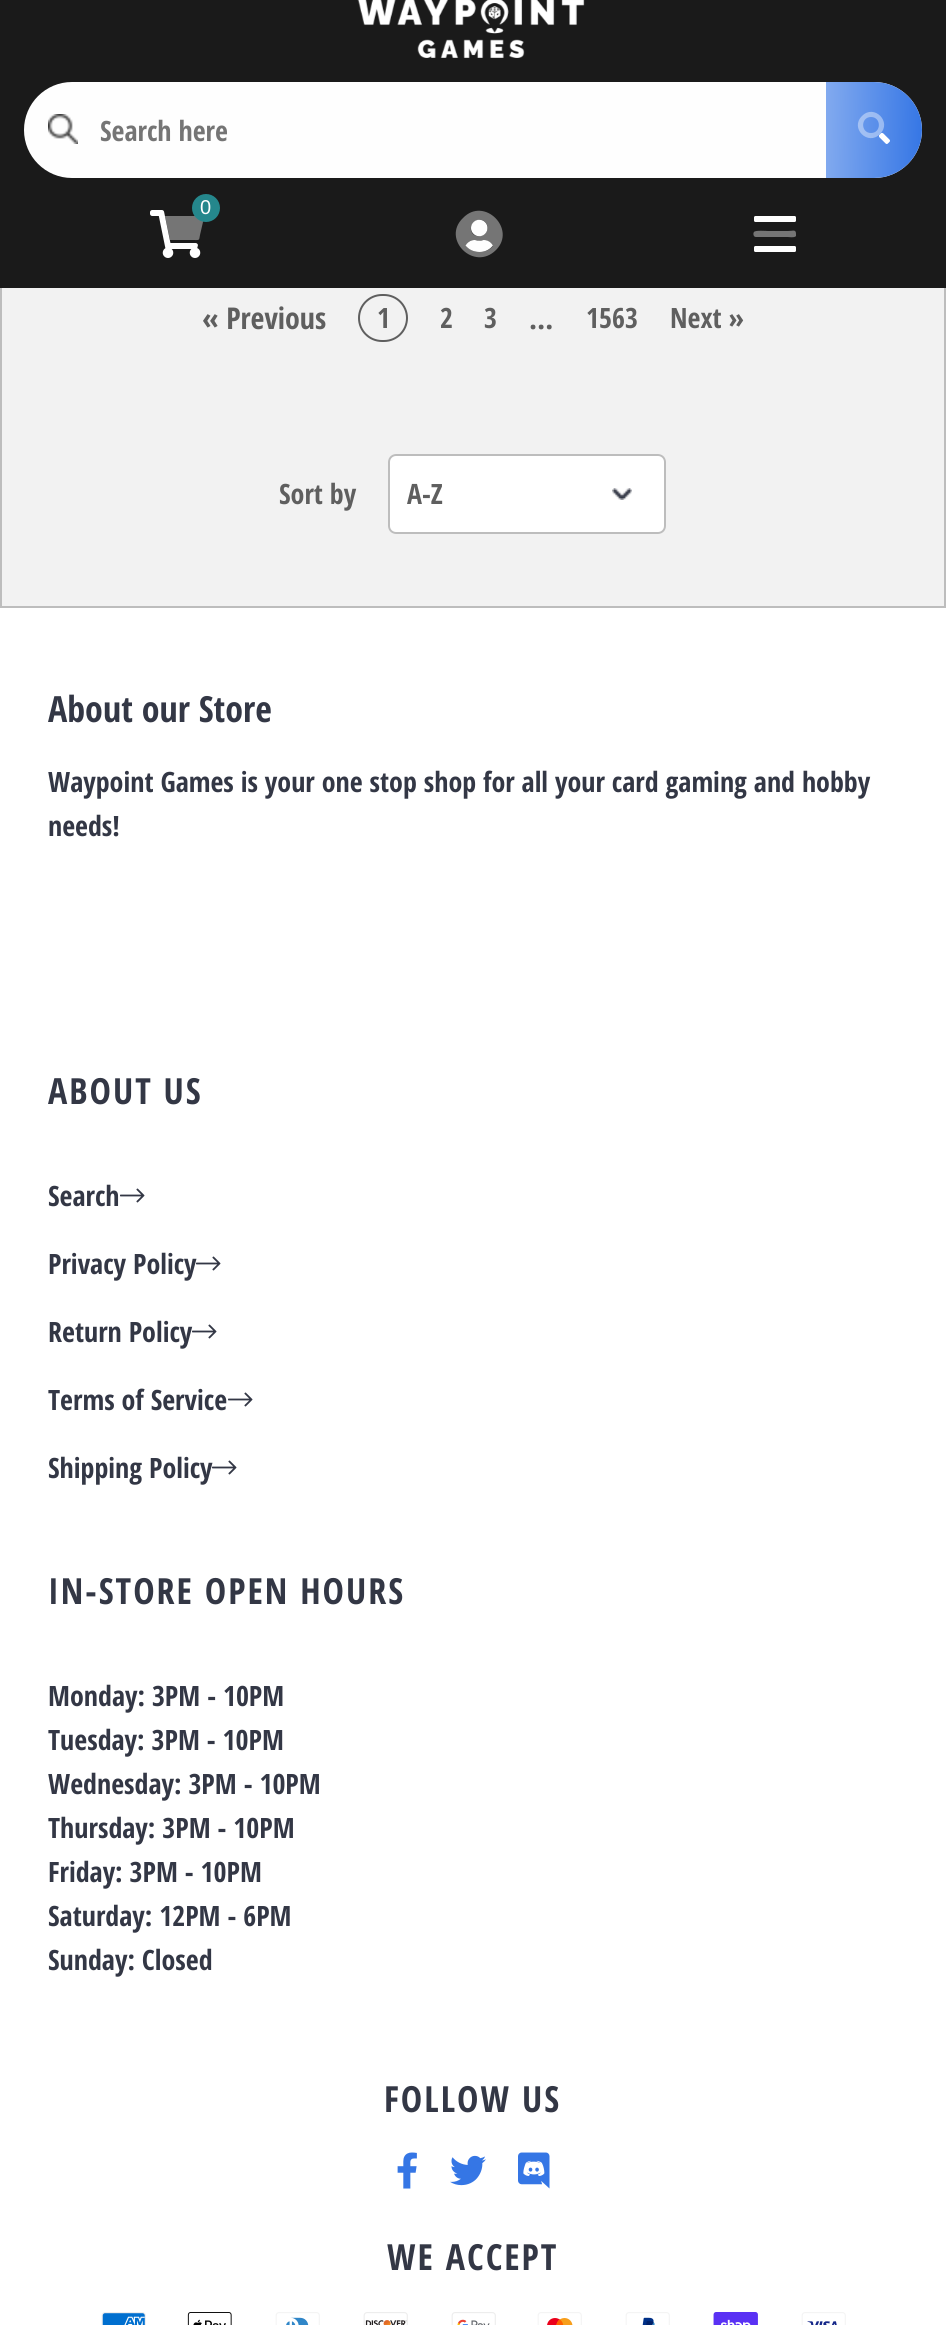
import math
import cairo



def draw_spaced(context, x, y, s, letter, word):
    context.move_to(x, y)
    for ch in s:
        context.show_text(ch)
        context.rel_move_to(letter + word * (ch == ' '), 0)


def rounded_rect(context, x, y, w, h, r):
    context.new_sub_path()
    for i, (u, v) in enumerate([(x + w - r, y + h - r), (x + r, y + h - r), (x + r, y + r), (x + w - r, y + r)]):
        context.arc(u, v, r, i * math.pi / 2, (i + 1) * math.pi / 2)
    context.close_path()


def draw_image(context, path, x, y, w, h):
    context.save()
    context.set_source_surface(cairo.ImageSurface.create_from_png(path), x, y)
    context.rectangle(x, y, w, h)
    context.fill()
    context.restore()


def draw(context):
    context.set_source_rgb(1, 1, 1)
    context.paint()
    context.set_source_rgb(26 / 255, 26 / 255, 26 / 255)
    context.rectangle(0, 0, 946, 288)
    context.fill()
    draw_image(context, "images/1.png", 357, 0, 228, 58)
    context.set_source_rgb(254 / 255, 254 / 255, 254 / 255)
    rounded_rect(context, 24, 82, 898, 96, 48)
    context.fill()
    draw_image(context, "images/2.png", 48, 114, 30, 30)
    gradient = cairo.LinearGradient(923, 131, 825, 129)
    gradient.add_color_stop_rgba(0, 53 / 255, 118 / 255, 229 / 255, 1)
    gradient.add_color_stop_rgba(1, 130 / 255, 170 / 255, 239 / 255, 1)
    context.set_source(gradient)
    context.new_path()
    context.move_to(826, 82)
    context.line_to(874, 82)
    context.curve_to(900.5, 82, 922, 103.5, 922, 130)
    context.curve_to(922, 156.5, 900.5, 178, 874, 178)
    context.line_to(826, 178)
    context.close_path()
    context.fill()
    draw_image(context, "images/3.png", 879, 133, 11, 11)
    context.set_source_rgba(1, 1, 1, 0.4)
    context.new_path()
    context.move_to(871, 117)
    context.curve_to(860.5, 117, 860.5, 133, 871, 133)
    context.curve_to(881.5, 133, 881.5, 117, 871, 117)
    context.close_path()
    context.move_to(862, 116)
    context.curve_to(874, 103.5, 892.5, 122, 880, 134)
    context.curve_to(868, 146.5, 849.5, 128, 862, 116)
    context.close_path()
    context.fill()
    draw_image(context, "images/4.png", 150, 210, 51, 48)
    context.set_source_rgba(254 / 255, 254 / 255, 254 / 255, 0.4)
    context.new_path()
    context.move_to(202, 216)
    context.curve_to(205, 216, 203.5, 220.5, 203, 222)
    context.line_to(200, 235)
    context.curve_to(199, 241, 199.5, 240, 193, 240)
    context.line_to(170, 240)
    context.line_to(165, 216)
    context.close_path()
    context.fill()
    context.set_source_rgb(37 / 255, 135 / 255, 140 / 255)
    context.arc(206, 208, 14, 0, 2 * math.pi)
    context.fill()
    draw_image(context, "images/5.png", 465, 219, 28, 33)
    context.set_source_rgba(254 / 255, 254 / 255, 254 / 255, 0.4)
    context.new_path()
    context.move_to(463, 218)
    context.curve_to(484, 196, 517, 229, 496, 250)
    context.curve_to(474, 272, 441, 239, 463, 218)
    context.close_path()
    context.move_to(485, 222)
    context.curve_to(478, 215, 466, 226, 473, 234)
    context.curve_to(481, 241, 493, 230, 485, 222)
    context.close_path()
    context.move_to(466, 246)
    context.curve_to(473, 254, 486, 254, 493, 246)
    context.curve_to(491, 242, 487, 240, 483, 240)
    context.line_to(479, 241)
    context.line_to(475, 240)
    context.curve_to(471, 240, 467, 242, 466, 246)
    context.close_path()
    context.fill()
    draw_image(context, "images/6.png", 754, 216, 42, 36)
    context.set_source_rgb(117 / 255, 117 / 255, 117 / 255)
    context.new_path()
    context.move_to(756, 237)
    context.curve_to(753, 237, 753, 233, 754, 232)
    context.curve_to(755, 230, 767, 231, 768, 231)
    context.line_to(788, 231)
    context.curve_to(793, 231, 796, 229, 796, 234)
    context.line_to(796, 236)
    context.curve_to(795, 238, 788, 237, 788, 237)
    context.close_path()
    context.fill()
    context.set_source_rgb(242 / 255, 242 / 255, 242 / 255)
    context.rectangle(2, 288, 942, 318)
    context.fill()
    context.set_source_rgb(189 / 255, 189 / 255, 189 / 255)
    context.rectangle(944, 288, 2, 318)
    context.fill()
    context.rectangle(0, 288, 2, 318)
    context.fill()
    rounded_rect(context, 359, 295, 48, 46, 23)
    context.set_source_rgb(95 / 255, 95 / 255, 95 / 255)
    context.stroke()
    context.set_source_rgb(1, 1, 1)
    rounded_rect(context, 388, 454, 278, 80, 8)
    context.fill()
    draw_image(context, "images/7.png", 612, 488, 20, 12)
    rounded_rect(context, 389, 455, 276, 78, 7)
    context.set_source_rgb(189 / 255, 189 / 255, 189 / 255)
    context.stroke()
    context.rectangle(0, 606, 946, 2)
    context.fill()
    draw_image(context, "images/8.png", 120, 1188, 25, 15)
    draw_image(context, "images/8.png", 228, 1392, 25, 15)
    draw_image(context, "images/12.png", 397, 2152, 20, 37)
    draw_image(context, "images/13.png", 450, 2155, 36, 31)
    draw_image(context, "images/14.png", 518, 2152, 32, 37)
    draw_image(context, "images/15.png", 101, 2312, 45, 13)
    draw_image(context, "images/16.png", 187, 2312, 45, 13)
    draw_image(context, "images/17.png", 275, 2312, 45, 13)
    draw_image(context, "images/18.png", 363, 2312, 45, 13)
    draw_image(context, "images/19.png", 451, 2312, 45, 13)
    draw_image(context, "images/20.png", 537, 2312, 45, 13)
    draw_image(context, "images/21.png", 625, 2312, 45, 13)
    draw_image(context, "images/22.png", 713, 2312, 45, 13)
    draw_image(context, "images/23.png", 801, 2312, 45, 13)
    context.select_font_face("Open Sans Condensed", cairo.FontSlant.NORMAL, cairo.FontWeight.BOLD)
    context.set_font_size(28)
    context.set_source_rgb(117 / 255, 117 / 255, 117 / 255)
    context.move_to(100, 141)
    context.show_text("Search here")
    context.select_font_face("Liberation Sans")
    context.set_font_size(20)
    context.set_source_rgb(1, 1, 1)
    context.move_to(200, 214)
    context.show_text("0")
    context.select_font_face("Open Sans Condensed", cairo.FontSlant.NORMAL, cairo.FontWeight.BOLD)
    context.set_font_size(30)
    context.set_source_rgb(95 / 255, 95 / 255, 95 / 255)
    context.move_to(202, 329)
    context.show_text("« Previous")
    context.set_font_size(28)
    context.move_to(377, 328)
    context.show_text("1")
    context.move_to(440, 328)
    context.show_text("2")
    context.move_to(484, 328)
    context.show_text("3")
    context.set_font_size(30)
    context.move_to(529, 329)
    context.show_text("…")
    context.set_font_size(28)
    context.move_to(586, 328)
    context.show_text("1563")
    context.move_to(670, 328)
    context.show_text("Next »")
    context.move_to(279, 504)
    context.show_text("Sort by")
    context.move_to(407, 504)
    context.show_text("A-Z")
    context.set_font_size(36)
    context.set_source_rgb(51 / 255, 55 / 255, 69 / 255)
    context.move_to(48, 722)
    context.show_text("About our Store")
    context.set_font_size(28)
    context.move_to(48, 792)
    context.show_text("Waypoint Games is your one stop shop for all your card gaming and hobby")
    context.move_to(48, 836)
    context.show_text("needs!")
    context.set_font_size(36)
    draw_spaced(context, 48, 1104, "ABOUT US", 2, 0)
    context.set_font_size(28)
    context.move_to(48, 1206)
    context.show_text("Search")
    context.move_to(48, 1274)
    context.show_text("Privacy Policy")
    draw_image(context, "images/9.png", 196, 1256, 25, 15)
    context.move_to(48, 1342)
    context.show_text("Return Policy")
    draw_image(context, "images/10.png", 192, 1324, 25, 15)
    context.move_to(48, 1410)
    context.show_text("Terms of Service")
    context.move_to(48, 1478)
    context.show_text("Shipping Policy")
    draw_image(context, "images/11.png", 212, 1460, 25, 15)
    context.set_font_size(36)
    draw_spaced(context, 48, 1604, "IN-STORE OPEN HOURS", 2, 0)
    context.set_font_size(28)
    context.move_to(48, 1706)
    context.show_text("Monday: 3PM - 10PM")
    context.move_to(48, 1750)
    context.show_text("Tuesday: 3PM - 10PM")
    context.move_to(48, 1794)
    context.show_text("Wednesday: 3PM - 10PM")
    context.move_to(48, 1838)
    context.show_text("Thursday: 3PM - 10PM")
    context.move_to(48, 1882)
    context.show_text("Friday: 3PM - 10PM")
    context.move_to(48, 1926)
    context.show_text("Saturday: 12PM - 6PM")
    context.move_to(48, 1970)
    context.show_text("Sunday: Closed")
    context.set_font_size(36)
    draw_spaced(context, 384, 2112, "FOLLOW US", 2, 0)
    draw_spaced(context, 387, 2270, "WE ACCEPT", 2, 0)


surface = cairo.ImageSurface(cairo.Format.RGB24, 946, 2325)
context = cairo.Context(surface)
options = cairo.FontOptions()
options.set_hint_metrics(cairo.HintMetrics.OFF)
options.set_hint_style(cairo.HintStyle.NONE)
context.set_font_options(options)
context.set_miter_limit(4)
draw(context)
surface.write_to_png("out.png")
